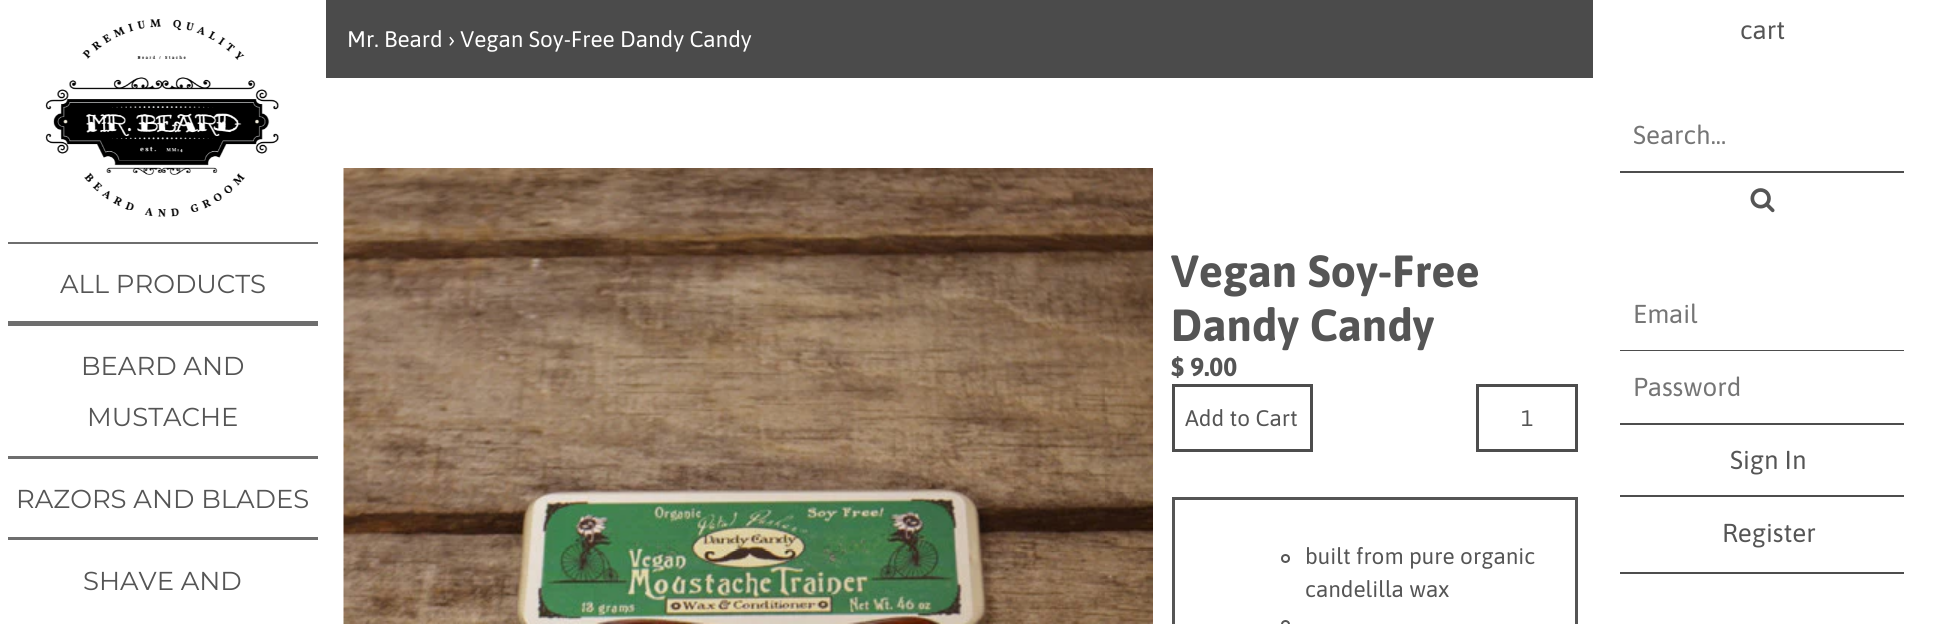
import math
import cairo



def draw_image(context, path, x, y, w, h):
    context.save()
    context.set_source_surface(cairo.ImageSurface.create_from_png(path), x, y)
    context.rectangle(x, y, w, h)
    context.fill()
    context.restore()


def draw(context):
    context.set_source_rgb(1, 1, 1)
    context.paint()
    draw_image(context, "images/1.png", 45, 19, 234, 198)
    context.set_source_rgb(110 / 255, 110 / 255, 110 / 255)
    context.rectangle(8, 242, 310, 2)
    context.fill()
    context.rectangle(8, 321, 310, 5)
    context.fill()
    context.rectangle(8, 456, 310, 3)
    context.fill()
    context.rectangle(8, 537, 310, 3)
    context.fill()
    context.set_source_rgb(75 / 255, 75 / 255, 75 / 255)
    context.rectangle(326, 0, 1267, 78)
    context.fill()
    draw_image(context, "images/2.png", 343, 168, 810, 456)
    context.rectangle(1173.5, 385.5, 138, 65)
    context.set_source_rgb(77 / 255, 77 / 255, 77 / 255)
    context.set_line_width(3)
    context.stroke()
    context.rectangle(1477.5, 385.5, 99, 65)
    context.stroke()
    context.rectangle(1173.5, 498.5, 403, 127)
    context.set_source_rgb(85 / 255, 85 / 255, 85 / 255)
    context.stroke()
    context.arc(1285.5, 558.5, 3.5, 0, 2 * math.pi)
    context.set_line_width(2)
    context.stroke()
    context.arc(1285.5, 624.5, 3.5, 0, 2 * math.pi)
    context.stroke()
    context.set_source_rgb(77 / 255, 77 / 255, 77 / 255)
    context.rectangle(1620, 171, 284, 2)
    context.fill()
    draw_image(context, "images/3.png", 1750, 188, 25, 25)
    context.rectangle(1620, 350, 284, 1)
    context.fill()
    context.rectangle(1620, 423, 284, 2)
    context.fill()
    context.rectangle(1620, 495, 284, 2)
    context.fill()
    context.rectangle(1620, 572, 284, 2)
    context.fill()
    context.select_font_face("Montserrat")
    context.set_font_size(25.9)
    context.set_source_rgb(85 / 255, 85 / 255, 85 / 255)
    context.move_to(60, 293)
    context.show_text("ALL PRODUCTS")
    context.move_to(81, 375)
    context.show_text("BEARD AND")
    context.move_to(87, 426)
    context.show_text("MUSTACHE")
    context.move_to(16, 508)
    context.show_text("RAZORS AND BLADES")
    context.move_to(83, 590)
    context.show_text("SHAVE AND")
    context.select_font_face("Asap")
    context.set_font_size(22.5)
    context.set_source_rgb(1, 1, 1)
    context.move_to(347, 47)
    context.show_text("Mr. Beard › Vegan Soy-Free Dandy Candy")
    context.select_font_face("Asap", cairo.FontSlant.NORMAL, cairo.FontWeight.BOLD)
    context.set_font_size(45)
    context.set_source_rgb(85 / 255, 85 / 255, 85 / 255)
    context.move_to(1171, 287)
    context.show_text("Vegan Soy-Free")
    context.move_to(1171, 341)
    context.show_text("Dandy Candy")
    context.set_font_size(26)
    context.move_to(1171, 376)
    context.show_text("$ 9.00")
    context.select_font_face("Asap")
    context.set_font_size(22.5)
    context.move_to(1185, 426)
    context.show_text("Add to Cart")
    context.move_to(1521, 426)
    context.show_text("1")
    context.move_to(1305, 564)
    context.show_text("built from pure organic")
    context.move_to(1305, 597)
    context.show_text("candelilla wax")
    context.set_font_size(25.9)
    context.move_to(1740, 39)
    context.show_text("cart")
    context.set_source_rgb(117 / 255, 117 / 255, 117 / 255)
    context.move_to(1633, 144)
    context.show_text("Search...")
    context.move_to(1633, 323)
    context.show_text("Email")
    context.move_to(1633, 396)
    context.show_text("Password")
    context.set_source_rgb(85 / 255, 85 / 255, 85 / 255)
    context.move_to(1730, 469)
    context.show_text("Sign In")
    context.move_to(1722, 542)
    context.show_text("Register")


surface = cairo.ImageSurface(cairo.Format.RGB24, 1950, 624)
context = cairo.Context(surface)
options = cairo.FontOptions()
options.set_hint_metrics(cairo.HintMetrics.OFF)
options.set_hint_style(cairo.HintStyle.NONE)
context.set_font_options(options)
context.set_miter_limit(4)
draw(context)
surface.write_to_png("out.png")
